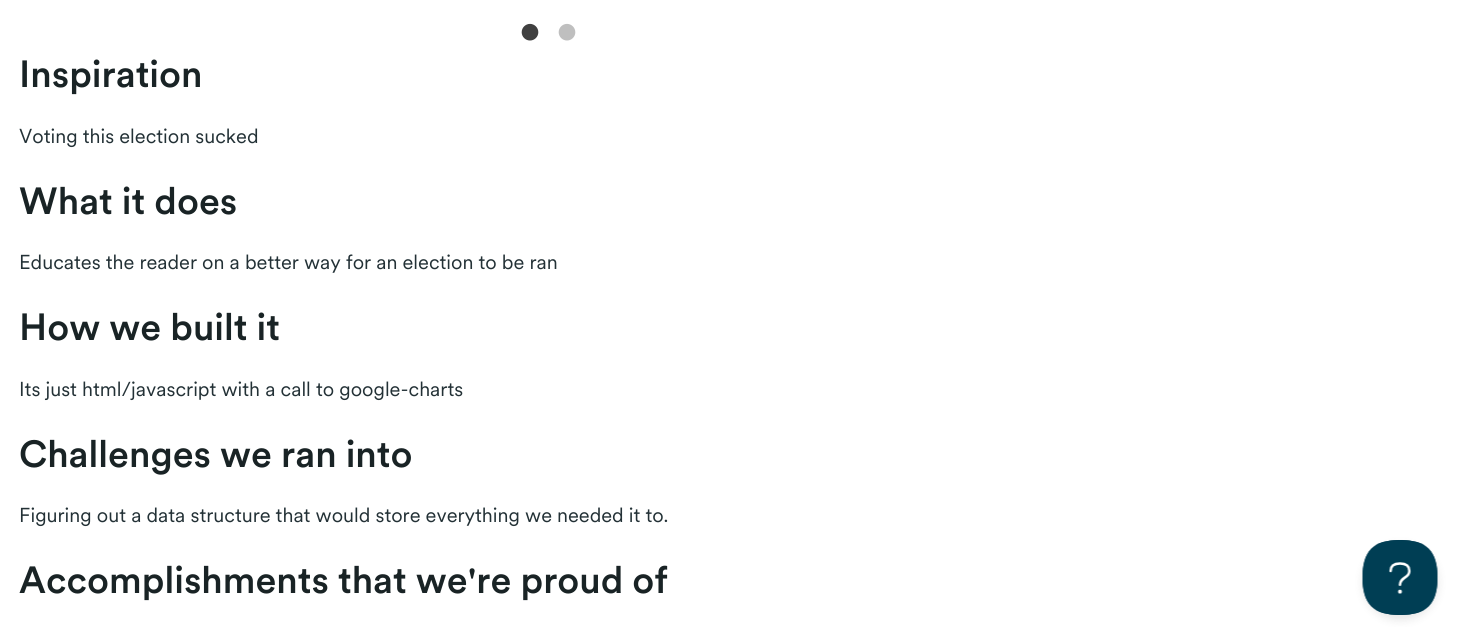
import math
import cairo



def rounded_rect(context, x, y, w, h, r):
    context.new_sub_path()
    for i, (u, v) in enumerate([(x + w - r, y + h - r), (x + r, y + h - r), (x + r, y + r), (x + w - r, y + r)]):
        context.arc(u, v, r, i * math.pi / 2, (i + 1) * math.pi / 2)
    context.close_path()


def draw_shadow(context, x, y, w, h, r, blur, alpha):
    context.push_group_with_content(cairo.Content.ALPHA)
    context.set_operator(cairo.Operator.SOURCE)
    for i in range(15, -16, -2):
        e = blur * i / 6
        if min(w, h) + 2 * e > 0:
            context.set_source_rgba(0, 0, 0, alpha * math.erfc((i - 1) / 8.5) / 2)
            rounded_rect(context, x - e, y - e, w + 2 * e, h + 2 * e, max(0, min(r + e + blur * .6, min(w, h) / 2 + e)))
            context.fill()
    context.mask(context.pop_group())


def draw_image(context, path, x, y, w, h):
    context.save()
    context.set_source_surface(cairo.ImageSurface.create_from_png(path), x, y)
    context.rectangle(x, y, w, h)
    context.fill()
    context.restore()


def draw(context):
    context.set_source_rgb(1, 1, 1)
    context.paint()
    context.set_source_rgb(0, 0, 0)
    draw_shadow(context, 1363, 545, 75, 75, 37.5, 4.5, 0.1)
    draw_image(context, "images/1.png", 1362, 540, 76, 75)
    context.select_font_face("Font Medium")
    context.set_font_size(40)
    context.set_source_rgb(64 / 255, 64 / 255, 64 / 255)
    context.move_to(519, 44)
    context.show_text("•")
    context.set_source_rgb(191 / 255, 191 / 255, 191 / 255)
    context.move_to(556, 44)
    context.show_text("•")
    context.set_font_size(37.5)
    context.set_source_rgb(25 / 255, 35 / 255, 37 / 255)
    context.move_to(19, 87)
    context.show_text("Inspiration")
    context.select_font_face("Font")
    context.set_font_size(20)
    context.set_source_rgb(35 / 255, 49 / 255, 54 / 255)
    context.move_to(19, 143)
    context.show_text("Voting this election sucked")
    context.select_font_face("Font Medium")
    context.set_font_size(37.5)
    context.set_source_rgb(25 / 255, 35 / 255, 37 / 255)
    context.move_to(19, 214)
    context.show_text("What it does")
    context.select_font_face("Font")
    context.set_font_size(20)
    context.set_source_rgb(35 / 255, 49 / 255, 54 / 255)
    context.move_to(19, 269)
    context.show_text("Educates the reader on a better way for an election to be ran")
    context.select_font_face("Font Medium")
    context.set_font_size(37.5)
    context.set_source_rgb(25 / 255, 35 / 255, 37 / 255)
    context.move_to(19, 340)
    context.show_text("How we built it")
    context.select_font_face("Font")
    context.set_font_size(20)
    context.set_source_rgb(35 / 255, 49 / 255, 54 / 255)
    context.move_to(19, 396)
    context.show_text("Its just html/javascript with a call to google-charts")
    context.select_font_face("Font Medium")
    context.set_font_size(37.5)
    context.set_source_rgb(25 / 255, 35 / 255, 37 / 255)
    context.move_to(19, 467)
    context.show_text("Challenges we ran into")
    context.select_font_face("Font")
    context.set_font_size(20)
    context.set_source_rgb(35 / 255, 49 / 255, 54 / 255)
    context.move_to(19, 522)
    context.show_text("Figuring out a data structure that would store everything we needed it to.")
    context.select_font_face("Font Medium")
    context.set_font_size(37.5)
    context.set_source_rgb(25 / 255, 35 / 255, 37 / 255)
    context.move_to(19, 593)
    context.show_text("Accomplishments that we're proud of")


surface = cairo.ImageSurface(cairo.Format.RGB24, 1462, 627)
context = cairo.Context(surface)
options = cairo.FontOptions()
options.set_hint_metrics(cairo.HintMetrics.OFF)
options.set_hint_style(cairo.HintStyle.NONE)
context.set_font_options(options)
context.set_miter_limit(4)
draw(context)
surface.write_to_png("out.png")
